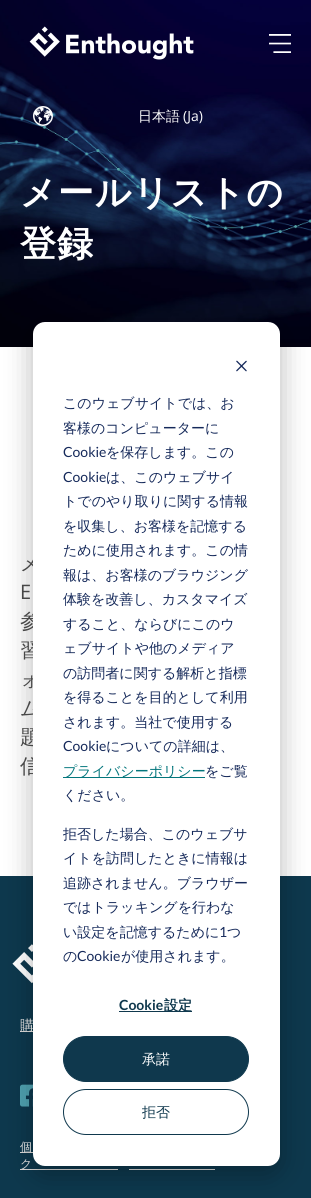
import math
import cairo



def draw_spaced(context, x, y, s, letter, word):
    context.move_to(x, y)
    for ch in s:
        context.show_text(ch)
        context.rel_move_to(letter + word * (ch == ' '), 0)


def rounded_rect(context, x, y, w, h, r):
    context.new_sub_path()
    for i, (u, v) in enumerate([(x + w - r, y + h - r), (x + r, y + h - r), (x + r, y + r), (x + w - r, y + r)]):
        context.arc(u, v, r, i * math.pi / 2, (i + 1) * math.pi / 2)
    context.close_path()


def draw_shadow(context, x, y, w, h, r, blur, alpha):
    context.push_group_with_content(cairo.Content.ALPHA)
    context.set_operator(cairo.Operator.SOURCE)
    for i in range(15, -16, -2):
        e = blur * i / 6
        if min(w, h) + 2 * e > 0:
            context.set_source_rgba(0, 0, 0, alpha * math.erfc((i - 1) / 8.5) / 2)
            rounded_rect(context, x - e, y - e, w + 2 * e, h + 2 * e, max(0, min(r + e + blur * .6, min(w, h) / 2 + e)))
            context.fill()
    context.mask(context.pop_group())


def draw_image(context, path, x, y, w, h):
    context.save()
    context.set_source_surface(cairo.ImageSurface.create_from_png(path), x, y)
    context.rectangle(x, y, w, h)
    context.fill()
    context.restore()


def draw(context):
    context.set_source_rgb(1, 1, 1)
    context.paint()
    draw_image(context, "images/4.png", 0, 0, 311, 347)
    draw_image(context, "images/1.png", 29, 26, 165, 34)
    draw_image(context, "images/2.png", 269, 34, 22, 19)
    draw_image(context, "images/3.png", 33, 106, 20, 20)
    context.set_source_rgb(13 / 255, 56 / 255, 77 / 255)
    context.rectangle(0, 876, 311, 322)
    context.fill()
    draw_image(context, "images/5.png", 12, 944, 21, 40)
    context.set_source_rgb(217 / 255, 216 / 255, 215 / 255)
    context.rectangle(20, 1031, 13, 1)
    context.fill()
    draw_image(context, "images/6.png", 20, 1084, 13, 23)
    context.rectangle(20, 1152, 13, 1)
    context.fill()
    context.rectangle(20, 1169, 98, 1)
    context.fill()
    context.rectangle(129, 1169, 86, 1)
    context.fill()
    context.set_source_rgb(0, 0, 0)
    draw_shadow(context, 33, 330, 247, 844, 12, 14, 0.28)
    context.select_font_face("WenQuanYi Zen Hei Medium")
    context.set_font_size(14)
    context.set_source_rgb(1, 1, 1)
    context.move_to(138, 121)
    context.show_text("日本語")
    context.select_font_face("Open Sans")
    context.move_to(183, 121)
    context.show_text("(Ja)")
    context.select_font_face("WenQuanYi Zen Hei", cairo.FontSlant.NORMAL, cairo.FontWeight.BOLD)
    context.set_font_size(36)
    draw_spaced(context, 20, 205, "メールリストの", 1, 0)
    draw_spaced(context, 20, 256, "登録", 1, 0)
    context.select_font_face("WenQuanYi Zen Hei Medium")
    context.set_font_size(20)
    context.set_source_rgb(71 / 255, 71 / 255, 71 / 255)
    context.move_to(20, 570)
    context.show_text("メ")
    context.select_font_face("Open Sans")
    context.move_to(20, 599)
    context.show_text("E")
    context.select_font_face("WenQuanYi Zen Hei Medium")
    context.move_to(20, 628)
    context.show_text("参")
    context.move_to(20, 657)
    context.show_text("習")
    context.move_to(20, 686)
    context.show_text("ォ")
    context.move_to(20, 715)
    context.show_text("ム")
    context.move_to(20, 744)
    context.show_text("題")
    context.move_to(20, 773)
    context.show_text("信")
    context.set_font_size(14)
    context.set_source_rgb(217 / 255, 216 / 255, 215 / 255)
    context.move_to(20, 1030)
    context.show_text("購")
    context.set_font_size(12)
    context.move_to(20, 1151)
    context.show_text("個")
    context.move_to(20, 1168)
    context.show_text("ク")
    context.set_source_rgb(1, 1, 1)
    rounded_rect(context, 33, 322, 247, 844, 12)
    context.fill()
    draw_image(context, "images/7.png", 236, 360, 11, 12)
    context.set_font_size(14)
    context.set_source_rgb(21 / 255, 41 / 255, 90 / 255)
    context.move_to(63, 408)
    context.show_text("このウェブサイトでは、お")
    context.move_to(63, 433)
    context.show_text("客様のコンピューターに")
    context.select_font_face("Lato")
    context.move_to(63, 457)
    context.show_text("Cookie")
    context.select_font_face("WenQuanYi Zen Hei Medium")
    context.move_to(106, 457)
    context.show_text("を保存します。この")
    context.select_font_face("Lato")
    context.move_to(63, 482)
    context.show_text("Cookie")
    context.select_font_face("WenQuanYi Zen Hei Medium")
    context.move_to(106, 482)
    context.show_text("は、このウェブサイ")
    context.move_to(63, 506)
    context.show_text("トでのやり取りに関する情報")
    context.move_to(63, 531)
    context.show_text("を収集し、お客様を記憶する")
    context.move_to(63, 555)
    context.show_text("ために使用されます。この情")
    context.move_to(63, 580)
    context.show_text("報は、お客様のブラウジング")
    context.move_to(63, 604)
    context.show_text("体験を改善し、カスタマイズ")
    context.move_to(63, 629)
    context.show_text("すること、ならびにこのウ")
    context.move_to(63, 653)
    context.show_text("ェブサイトや他のメディア")
    context.move_to(63, 678)
    context.show_text("の訪問者に関する解析と指標")
    context.move_to(63, 702)
    context.show_text("を得ることを目的として利用")
    context.move_to(63, 727)
    context.show_text("されます。当社で使用する")
    context.select_font_face("Lato")
    context.move_to(63, 751)
    context.show_text("Cookie")
    context.select_font_face("WenQuanYi Zen Hei Medium")
    context.move_to(106, 751)
    context.show_text("についての詳細は、")
    context.set_source_rgb(3 / 255, 118 / 255, 124 / 255)
    context.rectangle(63, 777, 142, 1)
    context.fill()
    context.move_to(63, 776)
    context.show_text("プライバシーポリシー")
    context.set_source_rgb(21 / 255, 41 / 255, 90 / 255)
    context.move_to(205, 776)
    context.show_text("をご覧")
    context.move_to(63, 800)
    context.show_text("ください。")
    context.move_to(63, 839)
    context.show_text("拒否した場合、このウェブサ")
    context.move_to(63, 863)
    context.show_text("イトを訪問したときに情報は")
    context.move_to(63, 888)
    context.show_text("追跡されません。ブラウザー")
    context.move_to(63, 912)
    context.show_text("ではトラッキングを行わな")
    context.move_to(63, 937)
    context.show_text("い設定を記憶するために")
    context.select_font_face("Lato")
    context.move_to(219, 937)
    context.show_text("1")
    context.select_font_face("WenQuanYi Zen Hei Medium")
    context.move_to(227, 937)
    context.show_text("つ")
    context.move_to(63, 961)
    context.show_text("の")
    context.select_font_face("Lato")
    context.move_to(77, 961)
    context.show_text("Cookie")
    context.select_font_face("WenQuanYi Zen Hei Medium")
    context.move_to(121, 961)
    context.show_text("が使用されます。")
    context.select_font_face("Lato", cairo.FontSlant.NORMAL, cairo.FontWeight.BOLD)
    context.set_source_rgb(15 / 255, 56 / 255, 77 / 255)
    context.move_to(119, 1010)
    context.show_text("Cookie")
    context.rectangle(119, 1011, 73, 1)
    context.fill()
    context.select_font_face("WenQuanYi Zen Hei", cairo.FontSlant.NORMAL, cairo.FontWeight.BOLD)
    context.move_to(164, 1010)
    context.show_text("設定")
    rounded_rect(context, 63.5, 1036.5, 185, 45, 22.5)
    context.fill_preserve()
    context.set_line_width(1)
    context.stroke()
    context.select_font_face("WenQuanYi Zen Hei Medium")
    context.set_source_rgb(1, 1, 1)
    context.move_to(142, 1064)
    context.show_text("承諾")
    rounded_rect(context, 63.5, 1089.5, 185, 45, 22.5)
    context.set_source_rgb(15 / 255, 56 / 255, 77 / 255)
    context.stroke()
    context.move_to(142, 1117)
    context.show_text("拒否")


surface = cairo.ImageSurface(cairo.Format.RGB24, 311, 1198)
context = cairo.Context(surface)
options = cairo.FontOptions()
options.set_hint_metrics(cairo.HintMetrics.OFF)
options.set_hint_style(cairo.HintStyle.NONE)
context.set_font_options(options)
context.set_miter_limit(4)
draw(context)
surface.write_to_png("out.png")
